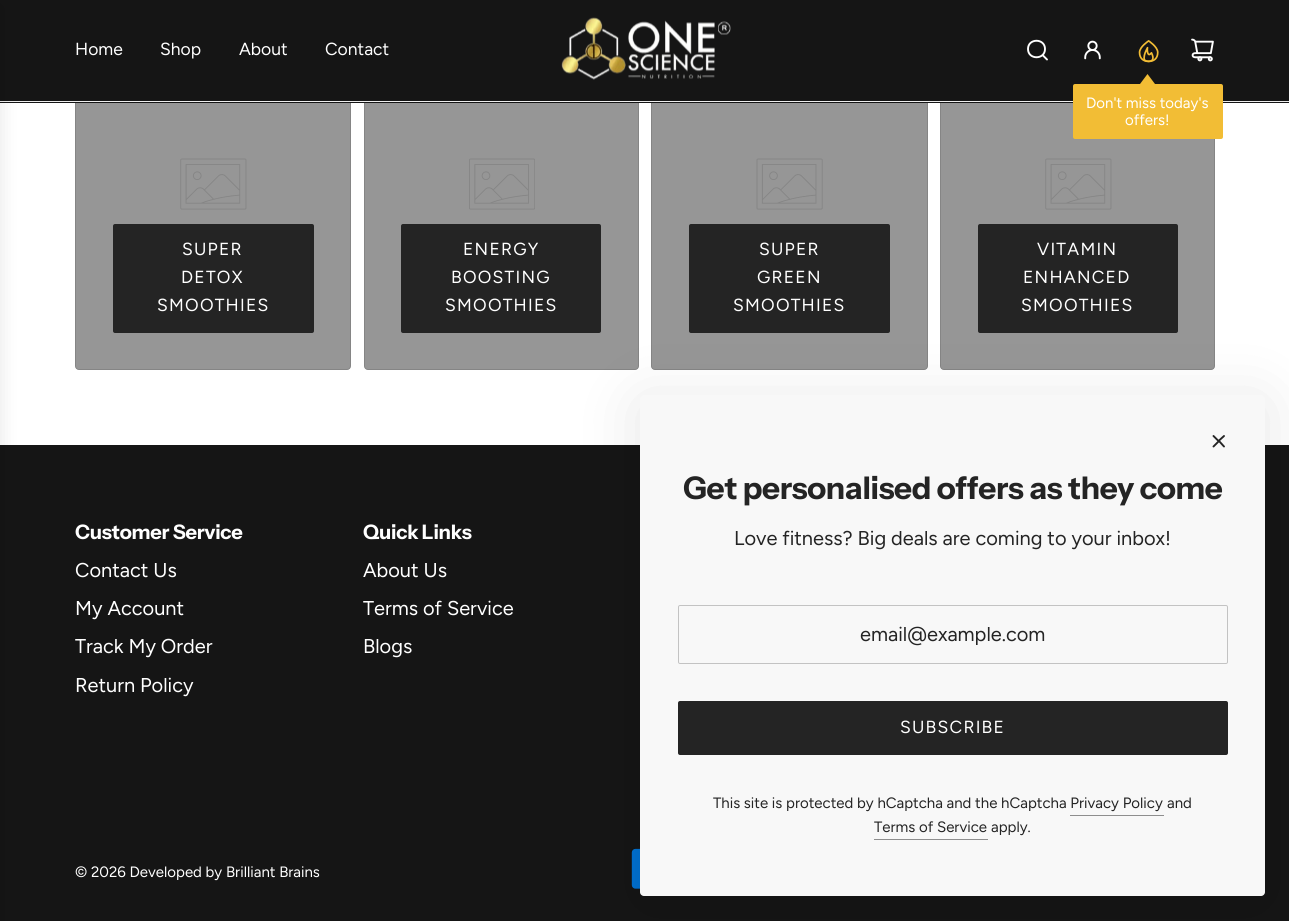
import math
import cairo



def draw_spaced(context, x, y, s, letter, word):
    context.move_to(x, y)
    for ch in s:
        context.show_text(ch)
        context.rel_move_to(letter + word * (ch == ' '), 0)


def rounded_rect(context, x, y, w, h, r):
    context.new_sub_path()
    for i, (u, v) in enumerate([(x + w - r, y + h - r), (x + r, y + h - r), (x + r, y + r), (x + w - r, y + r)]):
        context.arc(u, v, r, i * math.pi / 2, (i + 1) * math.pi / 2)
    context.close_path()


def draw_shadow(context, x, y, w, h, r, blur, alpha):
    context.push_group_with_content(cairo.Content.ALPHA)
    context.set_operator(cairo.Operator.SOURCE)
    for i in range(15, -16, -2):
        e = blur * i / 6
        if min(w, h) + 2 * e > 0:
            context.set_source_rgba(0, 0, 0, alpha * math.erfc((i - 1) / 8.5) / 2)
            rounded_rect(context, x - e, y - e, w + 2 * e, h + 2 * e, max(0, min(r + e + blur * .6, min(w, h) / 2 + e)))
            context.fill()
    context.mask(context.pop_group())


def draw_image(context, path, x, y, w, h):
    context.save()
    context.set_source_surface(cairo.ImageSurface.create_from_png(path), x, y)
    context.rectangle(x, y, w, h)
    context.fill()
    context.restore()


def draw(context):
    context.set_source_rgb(1, 1, 1)
    context.paint()
    context.set_source_rgb(150 / 255, 150 / 255, 150 / 255)
    rounded_rect(context, 75.5, -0.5, 275, 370, 3.5)
    context.fill_preserve()
    context.set_source_rgb(133 / 255, 133 / 255, 133 / 255)
    context.set_line_width(1)
    context.stroke()
    context.set_source_rgb(150 / 255, 150 / 255, 150 / 255)
    rounded_rect(context, 364.5, -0.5, 274, 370, 3.5)
    context.fill_preserve()
    context.set_source_rgb(133 / 255, 133 / 255, 133 / 255)
    context.stroke()
    context.set_source_rgb(150 / 255, 150 / 255, 150 / 255)
    rounded_rect(context, 651.5, -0.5, 276, 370, 3.5)
    context.fill_preserve()
    context.set_source_rgb(133 / 255, 133 / 255, 133 / 255)
    context.stroke()
    context.set_source_rgb(150 / 255, 150 / 255, 150 / 255)
    rounded_rect(context, 940.5, -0.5, 274, 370, 3.5)
    context.fill_preserve()
    context.set_source_rgb(133 / 255, 133 / 255, 133 / 255)
    context.stroke()
    context.set_source_rgb(21 / 255, 21 / 255, 21 / 255)
    context.rectangle(0, 0, 1289, 103)
    context.fill()
    context.set_source_rgb(238 / 255, 238 / 255, 238 / 255)
    context.rectangle(0, 101, 1289, 1)
    context.fill()
    context.set_source_rgb(21 / 255, 21 / 255, 21 / 255)
    context.rectangle(0, 445, 1289, 476)
    context.fill()
    context.set_source_rgb(0, 0, 0)
    draw_shadow(context, -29, 6, 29, 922, 0, 9.5, 0.1)
    draw_image(context, "images/1.png", 561, 17, 170, 63)
    context.new_path()
    context.move_to(1042.5, 55)
    context.line_to(1047, 59.5)
    context.move_to(1028, 49)
    context.curve_to(1028, 60, 1045, 60, 1045, 49)
    context.curve_to(1045, 38, 1028, 38, 1028, 49)
    context.close_path()
    context.set_source_rgb(1, 1, 1)
    context.set_line_width(1.9)
    context.set_line_cap(cairo.LineCap.ROUND)
    context.set_line_join(cairo.LineJoin.ROUND)
    context.stroke()
    draw_image(context, "images/2.png", 1084, 40, 17, 20)
    draw_image(context, "images/3.png", 1191, 38, 23, 24)
    draw_image(context, "images/4.png", 1138, 40, 21, 23)
    context.set_source_rgb(242 / 255, 189 / 255, 53 / 255)
    rounded_rect(context, 1073, 84, 150, 55, 2)
    context.fill()
    context.new_path()
    context.move_to(1155, 84)
    context.line_to(1140, 84)
    context.line_to(1147.5, 74)
    context.close_path()
    context.fill()
    draw_image(context, "images/5.png", 180, 158, 67, 52)
    context.set_source_rgb(36 / 255, 36 / 255, 36 / 255)
    rounded_rect(context, 113, 224, 201, 109, 2)
    context.fill()
    draw_image(context, "images/6.png", 469, 158, 66, 52)
    rounded_rect(context, 401, 224, 200, 109, 2)
    context.fill()
    draw_image(context, "images/7.png", 756, 158, 67, 52)
    rounded_rect(context, 689, 224, 201, 109, 2)
    context.fill()
    draw_image(context, "images/5.png", 1045, 158, 67, 52)
    rounded_rect(context, 978, 224, 200, 109, 2)
    context.fill()
    draw_image(context, "images/8.png", 631, 848, 9, 41)
    context.set_source_rgb(0, 0, 0)
    draw_shadow(context, 640, 401, 625, 502, 4, 31, 0.1)
    context.set_source_rgb(248 / 255, 248 / 255, 248 / 255)
    rounded_rect(context, 640, 395, 625, 501, 4)
    context.fill()
    context.new_path()
    context.move_to(1213.5, 446.5)
    context.line_to(1219, 441)
    context.line_to(1224, 446.5)
    context.move_to(1224, 436)
    context.line_to(1218.5, 441)
    context.line_to(1213.5, 436)
    context.set_source_rgb(36 / 255, 36 / 255, 36 / 255)
    context.stroke()
    rounded_rect(context, 678.5, 605.5, 549, 58, 1.5)
    context.set_source_rgb(195 / 255, 195 / 255, 195 / 255)
    context.set_line_width(1)
    context.set_line_cap(cairo.LineCap.BUTT)
    context.set_line_join(cairo.LineJoin.MITER)
    context.stroke()
    context.set_source_rgb(36 / 255, 36 / 255, 36 / 255)
    rounded_rect(context, 678, 701, 550, 54, 2)
    context.fill()
    context.set_source_rgb(142 / 255, 142 / 255, 142 / 255)
    context.rectangle(1070, 815, 94, 1)
    context.fill()
    context.rectangle(874, 839, 114, 1)
    context.fill()
    context.select_font_face("Figtree")
    context.set_font_size(17.5)
    context.set_source_rgb(1, 1, 1)
    context.move_to(75, 55)
    context.show_text("Home")
    context.move_to(160, 55)
    context.show_text("Shop")
    context.move_to(239, 55)
    context.show_text("About")
    context.move_to(325, 55)
    context.show_text("Contact")
    context.set_font_size(15)
    context.move_to(1086, 108)
    context.show_text("Don't miss today's")
    context.move_to(1125, 125)
    context.show_text("offers!")
    context.set_font_size(17.5)
    draw_spaced(context, 182, 255, "SUPER", 1.25, 0)
    draw_spaced(context, 181, 283, "DETOX", 1.25, 0)
    draw_spaced(context, 157, 311, "SMOOTHIES", 1.25, 0)
    draw_spaced(context, 463, 255, "ENERGY", 1.25, 0)
    draw_spaced(context, 451, 283, "BOOSTING", 1.25, 0)
    draw_spaced(context, 445, 311, "SMOOTHIES", 1.25, 0)
    draw_spaced(context, 759, 255, "SUPER", 1.25, 0)
    draw_spaced(context, 757, 283, "GREEN", 1.25, 0)
    draw_spaced(context, 733, 311, "SMOOTHIES", 1.25, 0)
    draw_spaced(context, 1037, 255, "VITAMIN", 1.25, 0)
    draw_spaced(context, 1023, 283, "ENHANCED", 1.25, 0)
    draw_spaced(context, 1021, 311, "SMOOTHIES", 1.25, 0)
    context.select_font_face("Instrument Sans", cairo.FontSlant.NORMAL, cairo.FontWeight.BOLD)
    context.set_font_size(20)
    draw_spaced(context, 75, 539, "Customer Service", -0.25, 0)
    context.select_font_face("Figtree")
    context.move_to(75, 577)
    context.show_text("Contact Us")
    context.move_to(75, 615)
    context.show_text("My Account")
    context.move_to(75, 653)
    context.show_text("Track My Order")
    context.move_to(75, 692)
    context.show_text("Return Policy")
    context.select_font_face("Instrument Sans", cairo.FontSlant.NORMAL, cairo.FontWeight.BOLD)
    draw_spaced(context, 363, 539, "Quick Links", -0.25, 0)
    context.select_font_face("Figtree")
    context.move_to(363, 577)
    context.show_text("About Us")
    context.move_to(363, 615)
    context.show_text("Terms of Service")
    context.move_to(363, 653)
    context.show_text("Blogs")
    context.set_font_size(15)
    context.move_to(75, 877)
    context.show_text("© 2026 Developed by Brilliant Brains")
    context.select_font_face("Instrument Sans", cairo.FontSlant.NORMAL, cairo.FontWeight.BOLD)
    context.set_font_size(31.25)
    context.set_source_rgb(36 / 255, 36 / 255, 36 / 255)
    draw_spaced(context, 683, 499, "Get personalised offers as they come", -0.3, 0)
    context.select_font_face("Figtree")
    context.set_font_size(20)
    context.move_to(734, 545)
    context.show_text("Love fitness? Big deals are coming to your inbox!")
    context.move_to(860, 641)
    context.show_text("email@example.com")
    context.set_font_size(17.5)
    context.set_source_rgb(1, 1, 1)
    draw_spaced(context, 900, 733, "SUBSCRIBE", 1.25, 0)
    context.set_font_size(15)
    context.set_source_rgb(36 / 255, 36 / 255, 36 / 255)
    context.move_to(713, 808)
    context.show_text("This site is protected by hCaptcha and the hCaptcha Privacy Policy")
    context.move_to(1167, 808)
    context.show_text("and")
    context.move_to(874, 832)
    context.show_text("Terms of Service")
    context.move_to(991, 832)
    context.show_text("apply.")


surface = cairo.ImageSurface(cairo.Format.RGB24, 1289, 921)
context = cairo.Context(surface)
options = cairo.FontOptions()
options.set_hint_metrics(cairo.HintMetrics.OFF)
options.set_hint_style(cairo.HintStyle.NONE)
context.set_font_options(options)
context.set_miter_limit(4)
draw(context)
surface.write_to_png("out.png")
